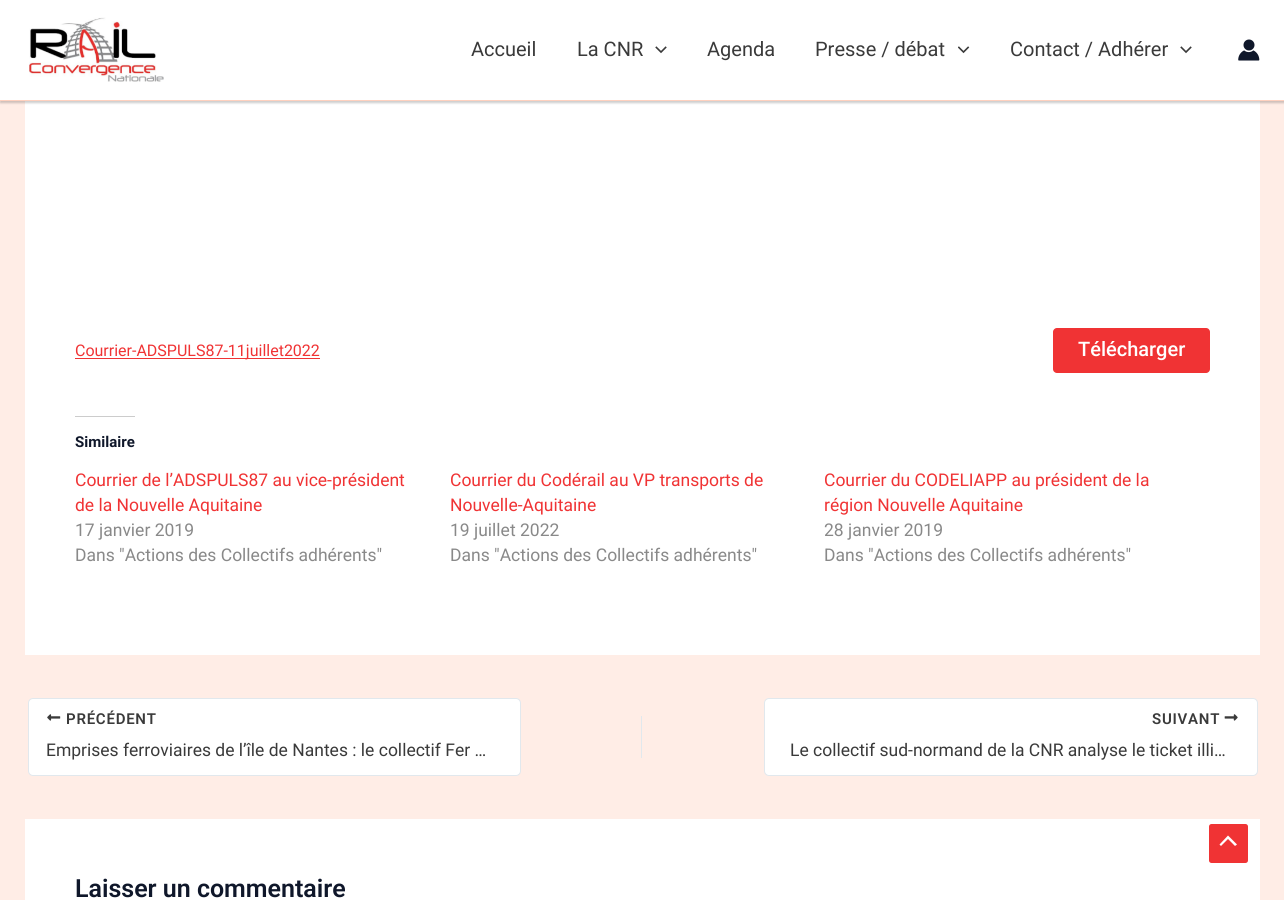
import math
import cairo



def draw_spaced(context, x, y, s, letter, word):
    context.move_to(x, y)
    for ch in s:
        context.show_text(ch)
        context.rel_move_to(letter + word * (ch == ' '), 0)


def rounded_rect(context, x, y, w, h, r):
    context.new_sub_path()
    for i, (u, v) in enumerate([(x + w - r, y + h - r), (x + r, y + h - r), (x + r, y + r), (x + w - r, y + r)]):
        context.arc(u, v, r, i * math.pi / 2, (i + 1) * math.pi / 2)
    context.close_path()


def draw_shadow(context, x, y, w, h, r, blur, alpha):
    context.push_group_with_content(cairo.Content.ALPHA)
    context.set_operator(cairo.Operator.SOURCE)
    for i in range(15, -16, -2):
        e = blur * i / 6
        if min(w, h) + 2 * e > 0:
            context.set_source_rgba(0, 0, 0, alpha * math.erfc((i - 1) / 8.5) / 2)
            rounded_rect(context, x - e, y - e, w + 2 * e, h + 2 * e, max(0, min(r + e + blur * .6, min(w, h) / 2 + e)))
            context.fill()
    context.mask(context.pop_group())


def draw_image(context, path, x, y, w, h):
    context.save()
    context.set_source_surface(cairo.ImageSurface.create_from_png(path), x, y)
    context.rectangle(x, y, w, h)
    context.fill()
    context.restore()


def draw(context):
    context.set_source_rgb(1, 237 / 255, 230 / 255)
    context.paint()
    context.set_source_rgb(1, 1, 1)
    context.rectangle(25, 101, 1235, 554)
    context.fill()
    context.set_source_rgb(0, 0, 0)
    draw_shadow(context, 0, 1, 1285, 102, 0, 1, 0.2)
    context.set_source_rgb(1, 1, 1)
    context.rectangle(0, 0, 1284, 100)
    context.fill()
    context.set_source_rgb(1, 209 / 255, 191 / 255)
    context.rectangle(0, 100, 1284, 1)
    context.fill()
    draw_image(context, "images/1.png", 29, 17, 135, 65)
    draw_image(context, "images/2.png", 655, 46, 12, 8)
    draw_image(context, "images/3.png", 958, 46, 12, 8)
    draw_image(context, "images/2.png", 1180, 46, 12, 8)
    draw_image(context, "images/4.png", 1238, 39, 22, 22)
    context.set_source_rgb(240 / 255, 51 / 255, 52 / 255)
    context.rectangle(75, 358, 245, 1)
    context.fill()
    rounded_rect(context, 1053, 328, 157, 45, 4)
    context.fill()
    context.set_source_rgb(204 / 255, 204 / 255, 204 / 255)
    context.rectangle(75, 416, 60, 1)
    context.fill()
    context.set_source_rgb(1, 1, 1)
    rounded_rect(context, 28.5, 698.5, 492, 77, 4.5)
    context.fill_preserve()
    context.set_source_rgb(225 / 255, 232 / 255, 237 / 255)
    context.set_line_width(1)
    context.stroke()
    draw_image(context, "images/5.png", 47, 714, 14, 7)
    context.rectangle(641, 716, 1, 42)
    context.fill()
    context.set_source_rgb(1, 1, 1)
    rounded_rect(context, 764.5, 698.5, 493, 77, 4.5)
    context.fill_preserve()
    context.set_source_rgb(225 / 255, 232 / 255, 237 / 255)
    context.stroke()
    draw_image(context, "images/6.png", 1224, 714, 14, 7)
    context.set_source_rgb(1, 1, 1)
    context.rectangle(25, 819, 1235, 81)
    context.fill()
    context.set_source_rgb(240 / 255, 51 / 255, 52 / 255)
    rounded_rect(context, 1209, 824, 39, 39, 2.5)
    context.fill()
    context.set_source_rgb(1, 1, 1)
    context.new_path()
    context.move_to(1237, 844.5)
    context.line_to(1228, 835.5)
    context.line_to(1219.5, 844.5)
    context.line_to(1221, 846)
    context.line_to(1228, 839)
    context.line_to(1235, 846)
    context.close_path()
    context.fill()
    context.select_font_face("Roboto")
    context.set_font_size(20)
    context.set_source_rgb(58 / 255, 58 / 255, 58 / 255)
    context.move_to(471, 56)
    context.show_text("Accueil")
    context.move_to(577, 56)
    context.show_text("La CNR")
    context.move_to(707, 56)
    context.show_text("Agenda")
    context.move_to(815, 56)
    context.show_text("Presse / débat")
    context.move_to(1010, 56)
    context.show_text("Contact / Adhérer")
    context.set_font_size(16)
    context.set_source_rgb(240 / 255, 51 / 255, 52 / 255)
    context.move_to(75, 356)
    context.show_text("Courrier-ADSPULS87-11juillet2022")
    context.select_font_face("Roboto Medium")
    context.set_font_size(20)
    context.set_source_rgb(1, 1, 1)
    context.move_to(1078, 356)
    context.show_text("Télécharger")
    context.select_font_face("Roboto", cairo.FontSlant.NORMAL, cairo.FontWeight.BOLD)
    context.set_font_size(15)
    context.set_source_rgb(15 / 255, 23 / 255, 42 / 255)
    context.move_to(75, 447)
    context.show_text("Similaire")
    context.select_font_face("Roboto")
    context.set_font_size(17.5)
    context.set_source_rgb(240 / 255, 51 / 255, 52 / 255)
    context.move_to(75, 486)
    context.show_text("Courrier de l’ADSPULS87 au vice-président")
    context.move_to(75, 511)
    context.show_text("de la Nouvelle Aquitaine")
    context.set_source_rgb(137 / 255, 137 / 255, 137 / 255)
    context.move_to(75, 536)
    context.show_text("17 janvier 2019")
    context.move_to(75, 561)
    context.show_text("Dans \"Actions des Collectifs adhérents\"")
    context.set_source_rgb(240 / 255, 51 / 255, 52 / 255)
    context.move_to(450, 486)
    context.show_text("Courrier du Codérail au VP transports de")
    context.move_to(450, 511)
    context.show_text("Nouvelle-Aquitaine")
    context.set_source_rgb(137 / 255, 137 / 255, 137 / 255)
    context.move_to(450, 536)
    context.show_text("19 juillet 2022")
    context.move_to(450, 561)
    context.show_text("Dans \"Actions des Collectifs adhérents\"")
    context.set_source_rgb(240 / 255, 51 / 255, 52 / 255)
    context.move_to(824, 486)
    context.show_text("Courrier du CODELIAPP au président de la")
    context.move_to(824, 511)
    context.show_text("région Nouvelle Aquitaine")
    context.set_source_rgb(137 / 255, 137 / 255, 137 / 255)
    context.move_to(824, 536)
    context.show_text("28 janvier 2019")
    context.move_to(824, 561)
    context.show_text("Dans \"Actions des Collectifs adhérents\"")
    context.select_font_face("Roboto SemiBold")
    context.set_font_size(15)
    context.set_source_rgb(58 / 255, 58 / 255, 58 / 255)
    draw_spaced(context, 66, 724, "PRÉCÉDENT", 0.75, 0)
    context.select_font_face("Roboto")
    context.set_font_size(17.5)
    context.move_to(46, 756)
    context.show_text("Emprises ferroviaires de l’île de Nantes : le collectif Fer …")
    context.select_font_face("Roboto SemiBold")
    context.set_font_size(15)
    draw_spaced(context, 1152, 724, "SUIVANT", 0.75, 0)
    context.select_font_face("Roboto")
    context.set_font_size(17.5)
    context.move_to(790, 756)
    context.show_text("Le collectif sud-normand de la CNR analyse le ticket illi…")
    context.select_font_face("Roboto SemiBold")
    context.set_font_size(25)
    context.set_source_rgb(15 / 255, 23 / 255, 42 / 255)
    context.move_to(75, 897)
    context.show_text("Laisser un commentaire")


surface = cairo.ImageSurface(cairo.Format.RGB24, 1284, 900)
context = cairo.Context(surface)
options = cairo.FontOptions()
options.set_hint_metrics(cairo.HintMetrics.OFF)
options.set_hint_style(cairo.HintStyle.NONE)
context.set_font_options(options)
context.set_miter_limit(4)
draw(context)
surface.write_to_png("out.png")
